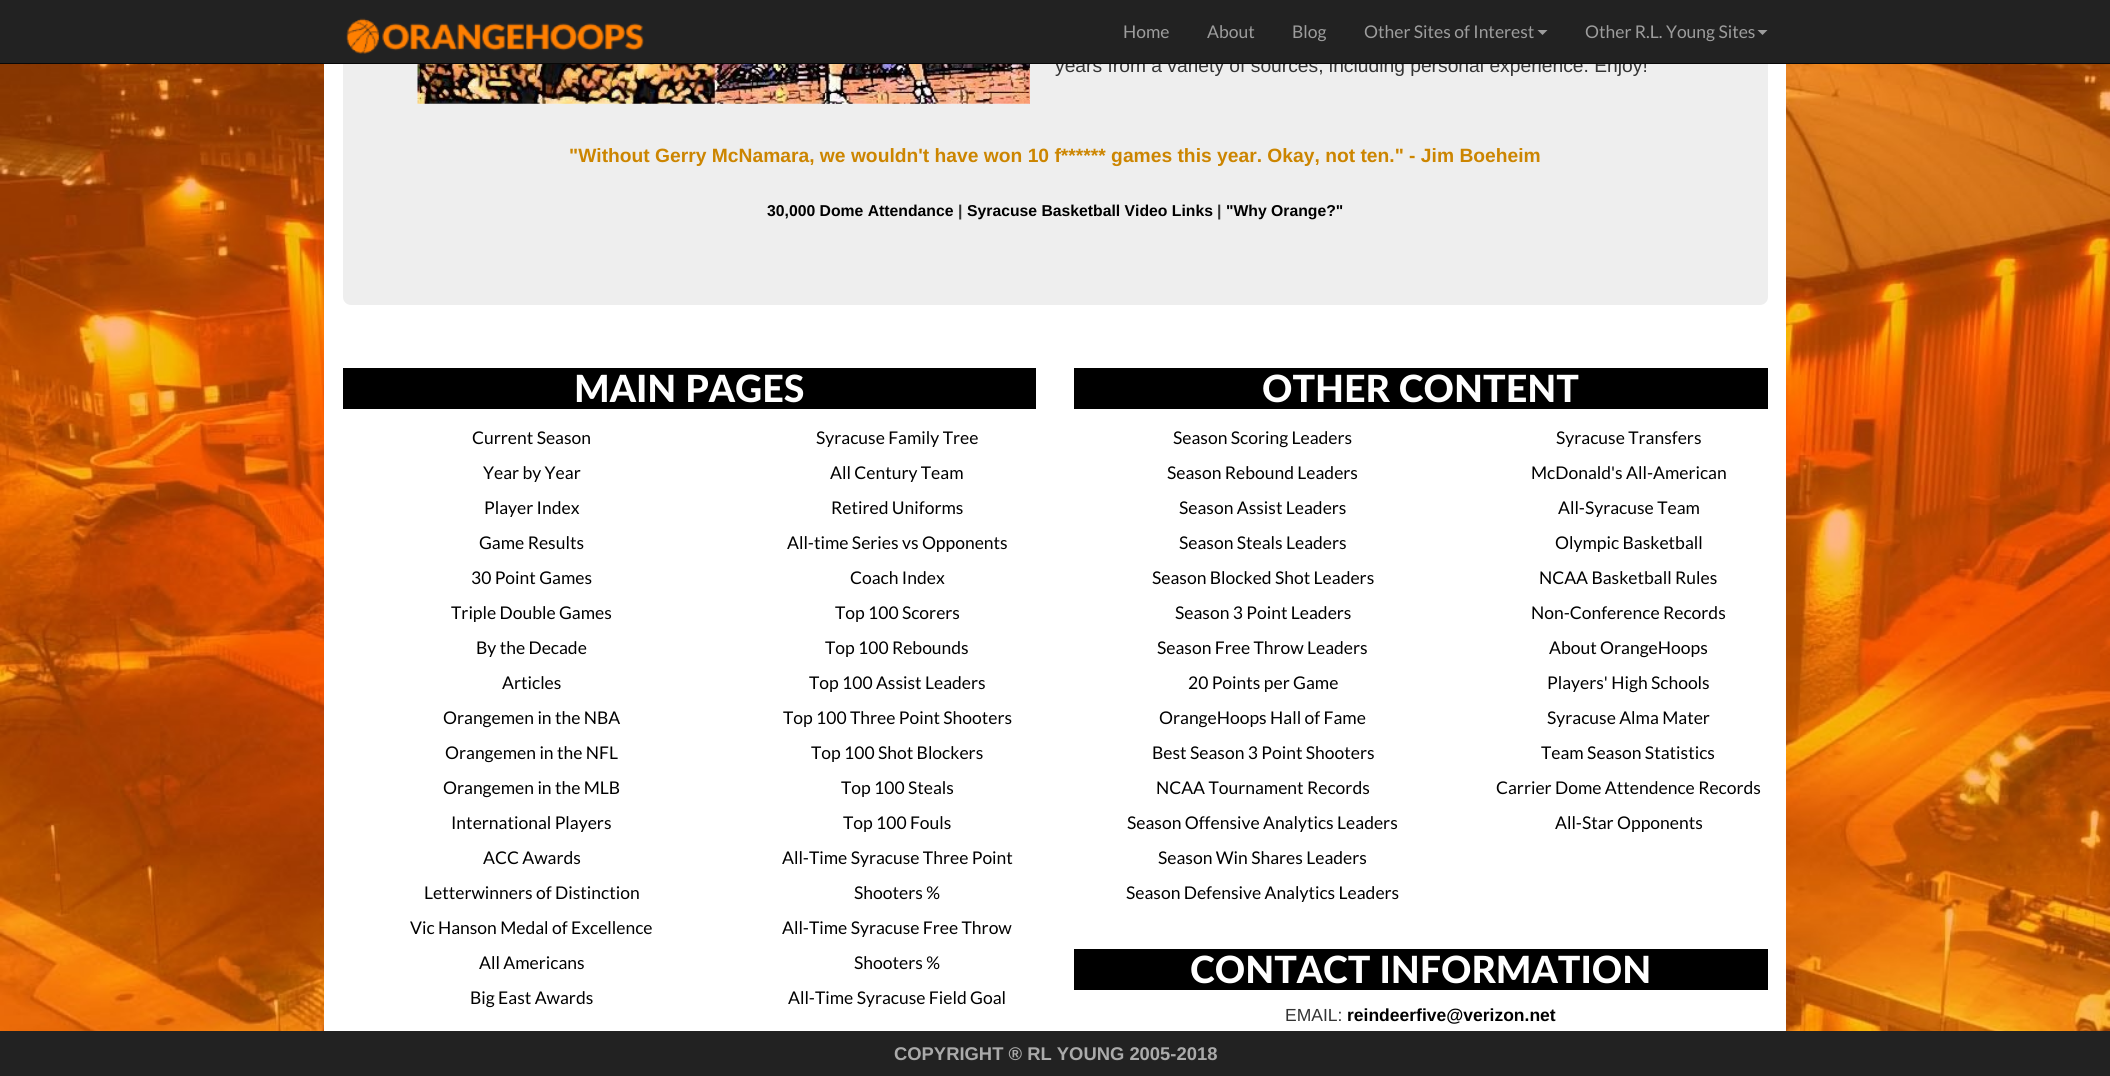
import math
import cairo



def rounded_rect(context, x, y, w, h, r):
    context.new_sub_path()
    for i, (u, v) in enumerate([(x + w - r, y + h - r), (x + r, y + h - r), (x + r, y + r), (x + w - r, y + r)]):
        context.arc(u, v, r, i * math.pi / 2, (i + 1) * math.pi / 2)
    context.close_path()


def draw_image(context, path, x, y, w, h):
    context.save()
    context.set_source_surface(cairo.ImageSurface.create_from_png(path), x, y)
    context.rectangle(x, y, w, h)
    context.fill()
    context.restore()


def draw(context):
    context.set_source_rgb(1, 1, 1)
    context.paint()
    draw_image(context, "images/1.png", 0, 64, 2110, 967)
    context.set_source_rgb(1, 1, 1)
    context.rectangle(324, 64, 1462, 967)
    context.fill()
    context.set_source_rgb(238 / 255, 238 / 255, 238 / 255)
    rounded_rect(context, 343, -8, 1425, 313, 8)
    context.fill()
    draw_image(context, "images/3.png", 417, 64, 613, 40)
    context.set_source_rgb(0, 0, 0)
    context.rectangle(343, 368, 693, 41)
    context.fill()
    context.rectangle(1074, 368, 694, 41)
    context.fill()
    context.rectangle(1074, 949, 694, 41)
    context.fill()
    context.set_source_rgb(34 / 255, 34 / 255, 34 / 255)
    context.rectangle(0, 1031, 2110, 45)
    context.fill()
    context.select_font_face("Liberation Sans")
    context.set_font_size(19.25)
    context.set_source_rgb(51 / 255, 51 / 255, 51 / 255)
    context.move_to(1055, 72)
    context.show_text("years from a variety of sources, including personal experience. Enjoy!")
    context.set_source_rgb(34 / 255, 34 / 255, 34 / 255)
    context.rectangle(0, 0, 2110, 63)
    context.fill()
    context.set_source_rgb(157 / 255, 157 / 255, 157 / 255)
    context.new_path()
    context.move_to(1757.5, 30)
    context.line_to(1767.5, 30)
    context.line_to(1762.5, 35)
    context.close_path()
    context.fill()
    context.select_font_face("Lato")
    context.set_font_size(17.5)
    context.move_to(1585, 38)
    context.show_text("Other R.L. Young Sites")
    context.new_path()
    context.move_to(1537.5, 30)
    context.line_to(1547.5, 30)
    context.line_to(1542.5, 35)
    context.close_path()
    context.fill()
    context.move_to(1364, 38)
    context.show_text("Other Sites of Interest")
    context.move_to(1292, 38)
    context.show_text("Blog")
    context.move_to(1207, 38)
    context.show_text("About")
    context.move_to(1123, 38)
    context.show_text("Home")
    draw_image(context, "images/2.png", 346, 18, 298, 36)
    context.set_source_rgb(8 / 255, 8 / 255, 8 / 255)
    context.rectangle(0, 63, 2110, 1)
    context.fill()
    context.select_font_face("Liberation Sans", cairo.FontSlant.NORMAL, cairo.FontWeight.BOLD)
    context.set_font_size(19.25)
    context.set_source_rgb(204 / 255, 133 / 255, 0)
    context.move_to(569, 162)
    context.show_text("\"Without Gerry McNamara, we wouldn't have won 10 f****** games this year. Okay, not ten.\" - Jim Boeheim")
    context.set_font_size(15.75)
    context.set_source_rgb(0, 0, 0)
    context.move_to(767, 216)
    context.show_text("30,000 Dome Attendance")
    context.set_source_rgb(51 / 255, 51 / 255, 51 / 255)
    context.move_to(958, 216)
    context.show_text("|")
    context.set_source_rgb(0, 0, 0)
    context.move_to(967, 216)
    context.show_text("Syracuse Basketball Video Links")
    context.set_source_rgb(51 / 255, 51 / 255, 51 / 255)
    context.move_to(1217, 216)
    context.show_text("|")
    context.set_source_rgb(0, 0, 0)
    context.move_to(1226, 216)
    context.show_text("\"Why Orange?\"")
    context.select_font_face("Lato Black")
    context.set_font_size(37.5)
    context.set_source_rgb(1, 1, 1)
    context.move_to(574, 402)
    context.show_text("MAIN PAGES")
    context.select_font_face("Lato")
    context.set_font_size(17.5)
    context.set_source_rgb(0, 0, 0)
    context.move_to(472, 444)
    context.show_text("Current Season")
    context.move_to(483, 479)
    context.show_text("Year by Year")
    context.move_to(484, 514)
    context.show_text("Player Index")
    context.move_to(479, 549)
    context.show_text("Game Results")
    context.move_to(471, 584)
    context.show_text("30 Point Games")
    context.move_to(451, 619)
    context.show_text("Triple Double Games")
    context.move_to(476, 654)
    context.show_text("By the Decade")
    context.move_to(502, 689)
    context.show_text("Articles")
    context.move_to(443, 724)
    context.show_text("Orangemen in the NBA")
    context.move_to(445, 759)
    context.show_text("Orangemen in the NFL")
    context.move_to(443, 794)
    context.show_text("Orangemen in the MLB")
    context.move_to(451, 829)
    context.show_text("International Players")
    context.move_to(483, 864)
    context.show_text("ACC Awards")
    context.move_to(424, 899)
    context.show_text("Letterwinners of Distinction")
    context.move_to(410, 934)
    context.show_text("Vic Hanson Medal of Excellence")
    context.move_to(479, 969)
    context.show_text("All Americans")
    context.move_to(470, 1004)
    context.show_text("Big East Awards")
    context.move_to(816, 444)
    context.show_text("Syracuse Family Tree")
    context.move_to(830, 479)
    context.show_text("All Century Team")
    context.move_to(831, 514)
    context.show_text("Retired Uniforms")
    context.move_to(787, 549)
    context.show_text("All-time Series vs Opponents")
    context.move_to(850, 584)
    context.show_text("Coach Index")
    context.move_to(835, 619)
    context.show_text("Top 100 Scorers")
    context.move_to(825, 654)
    context.show_text("Top 100 Rebounds")
    context.move_to(809, 689)
    context.show_text("Top 100 Assist Leaders")
    context.move_to(783, 724)
    context.show_text("Top 100 Three Point Shooters")
    context.move_to(811, 759)
    context.show_text("Top 100 Shot Blockers")
    context.move_to(841, 794)
    context.show_text("Top 100 Steals")
    context.move_to(843, 829)
    context.show_text("Top 100 Fouls")
    context.move_to(782, 864)
    context.show_text("All-Time Syracuse Three Point")
    context.move_to(854, 899)
    context.show_text("Shooters %")
    context.move_to(782, 934)
    context.show_text("All-Time Syracuse Free Throw")
    context.move_to(854, 969)
    context.show_text("Shooters %")
    context.move_to(788, 1004)
    context.show_text("All-Time Syracuse Field Goal")
    context.select_font_face("Lato Black")
    context.set_font_size(37.5)
    context.set_source_rgb(1, 1, 1)
    context.move_to(1262, 402)
    context.show_text("OTHER CONTENT")
    context.select_font_face("Lato")
    context.set_font_size(17.5)
    context.set_source_rgb(0, 0, 0)
    context.move_to(1173, 444)
    context.show_text("Season Scoring Leaders")
    context.move_to(1167, 479)
    context.show_text("Season Rebound Leaders")
    context.move_to(1179, 514)
    context.show_text("Season Assist Leaders")
    context.move_to(1179, 549)
    context.show_text("Season Steals Leaders")
    context.move_to(1152, 584)
    context.show_text("Season Blocked Shot Leaders")
    context.move_to(1175, 619)
    context.show_text("Season 3 Point Leaders")
    context.move_to(1157, 654)
    context.show_text("Season Free Throw Leaders")
    context.move_to(1188, 689)
    context.show_text("20 Points per Game")
    context.move_to(1159, 724)
    context.show_text("OrangeHoops Hall of Fame")
    context.move_to(1152, 759)
    context.show_text("Best Season 3 Point Shooters")
    context.move_to(1156, 794)
    context.show_text("NCAA Tournament Records")
    context.move_to(1127, 829)
    context.show_text("Season Offensive Analytics Leaders")
    context.move_to(1158, 864)
    context.show_text("Season Win Shares Leaders")
    context.move_to(1126, 899)
    context.show_text("Season Defensive Analytics Leaders")
    context.move_to(1556, 444)
    context.show_text("Syracuse Transfers")
    context.move_to(1531, 479)
    context.show_text("McDonald's All-American")
    context.move_to(1558, 514)
    context.show_text("All-Syracuse Team")
    context.move_to(1555, 549)
    context.show_text("Olympic Basketball")
    context.move_to(1539, 584)
    context.show_text("NCAA Basketball Rules")
    context.move_to(1531, 619)
    context.show_text("Non-Conference Records")
    context.move_to(1549, 654)
    context.show_text("About OrangeHoops")
    context.move_to(1547, 689)
    context.show_text("Players' High Schools")
    context.move_to(1547, 724)
    context.show_text("Syracuse Alma Mater")
    context.move_to(1541, 759)
    context.show_text("Team Season Statistics")
    context.move_to(1496, 794)
    context.show_text("Carrier Dome Attendence Records")
    context.move_to(1555, 829)
    context.show_text("All-Star Opponents")
    context.select_font_face("Lato Black")
    context.set_font_size(37.5)
    context.set_source_rgb(1, 1, 1)
    context.move_to(1190, 983)
    context.show_text("CONTACT INFORMATION")
    context.select_font_face("Liberation Sans")
    context.set_font_size(17.5)
    context.set_source_rgb(51 / 255, 51 / 255, 51 / 255)
    context.move_to(1285, 1021)
    context.show_text("EMAIL:")
    context.select_font_face("Liberation Sans", cairo.FontSlant.NORMAL, cairo.FontWeight.BOLD)
    context.set_source_rgb(0, 0, 0)
    context.move_to(1347, 1021)
    context.show_text("reindeerfive@verizon.net")
    context.set_font_size(18.4)
    context.set_source_rgb(170 / 255, 170 / 255, 170 / 255)
    context.move_to(894, 1060)
    context.show_text("COPYRIGHT ® RL YOUNG 2005-2018")


surface = cairo.ImageSurface(cairo.Format.RGB24, 2110, 1076)
context = cairo.Context(surface)
options = cairo.FontOptions()
options.set_hint_metrics(cairo.HintMetrics.OFF)
options.set_hint_style(cairo.HintStyle.NONE)
context.set_font_options(options)
context.set_miter_limit(4)
draw(context)
surface.write_to_png("out.png")
